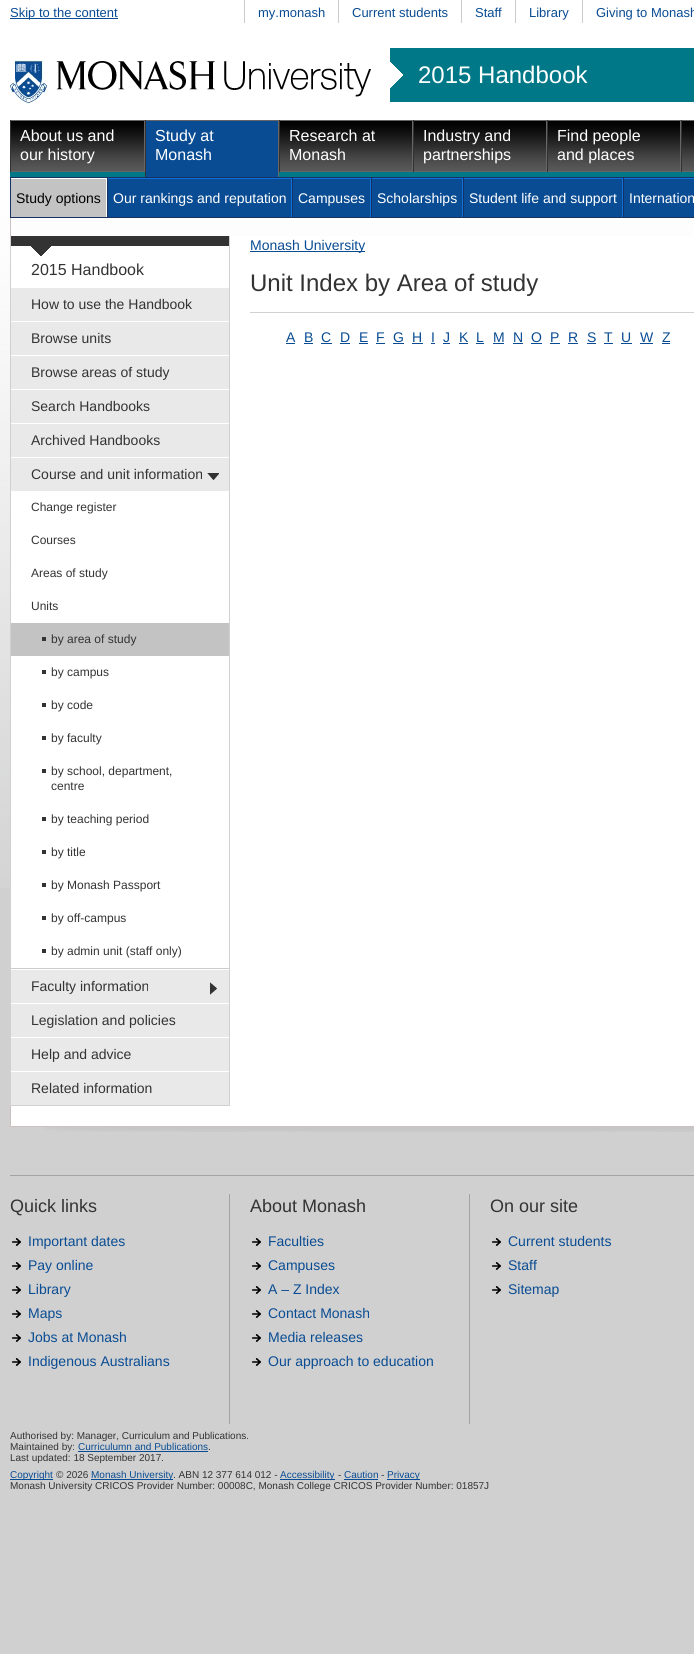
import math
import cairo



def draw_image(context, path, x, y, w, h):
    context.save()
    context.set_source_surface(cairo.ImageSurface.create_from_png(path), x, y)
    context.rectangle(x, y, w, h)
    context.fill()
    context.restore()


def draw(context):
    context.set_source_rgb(208 / 255, 208 / 255, 208 / 255)
    context.paint()
    draw_image(context, "images/1.png", 0, 0, 694, 888)
    context.set_source_rgb(9 / 255, 76 / 255, 147 / 255)
    context.rectangle(10, 18, 108, 1)
    context.fill()
    context.set_source_rgb(204 / 255, 204 / 255, 204 / 255)
    context.rectangle(244, 0, 1, 23)
    context.fill()
    context.rectangle(338, 0, 1, 23)
    context.fill()
    context.rectangle(461, 0, 1, 23)
    context.fill()
    context.rectangle(515, 0, 1, 23)
    context.fill()
    context.rectangle(582, 0, 1, 23)
    context.fill()
    draw_image(context, "images/2.png", 10, 60, 361, 44)
    context.set_source_rgb(0, 120 / 255, 136 / 255)
    context.rectangle(390, 48, 304, 54)
    context.fill()
    draw_image(context, "images/3.png", 390, 62, 13, 26)
    context.rectangle(10, 172, 684, 5)
    context.fill()
    draw_image(context, "images/4.png", 11, 121, 683, 50)
    context.set_source_rgb(102 / 255, 102 / 255, 102 / 255)
    context.rectangle(10, 120, 684, 1)
    context.fill()
    context.rectangle(144, 120, 1, 52)
    context.fill()
    context.rectangle(10, 171, 135, 1)
    context.fill()
    context.set_source_rgb(51 / 255, 51 / 255, 51 / 255)
    context.rectangle(10, 120, 1, 52)
    context.fill()
    context.set_source_rgb(9 / 255, 76 / 255, 147 / 255)
    context.rectangle(146, 121, 132, 56)
    context.fill()
    context.set_source_rgb(102 / 255, 102 / 255, 102 / 255)
    context.rectangle(278, 120, 1, 57)
    context.fill()
    context.set_source_rgb(51 / 255, 51 / 255, 51 / 255)
    context.rectangle(145, 120, 1, 57)
    context.fill()
    context.set_source_rgb(102 / 255, 102 / 255, 102 / 255)
    context.rectangle(412, 120, 1, 52)
    context.fill()
    context.rectangle(279, 171, 134, 1)
    context.fill()
    context.set_source_rgb(51 / 255, 51 / 255, 51 / 255)
    context.rectangle(279, 120, 1, 52)
    context.fill()
    context.set_source_rgb(102 / 255, 102 / 255, 102 / 255)
    context.rectangle(546, 120, 1, 52)
    context.fill()
    context.rectangle(413, 171, 134, 1)
    context.fill()
    context.set_source_rgb(51 / 255, 51 / 255, 51 / 255)
    context.rectangle(413, 120, 1, 52)
    context.fill()
    context.set_source_rgb(102 / 255, 102 / 255, 102 / 255)
    context.rectangle(680, 120, 1, 52)
    context.fill()
    context.rectangle(547, 171, 147, 1)
    context.fill()
    context.set_source_rgb(51 / 255, 51 / 255, 51 / 255)
    context.rectangle(547, 120, 1, 52)
    context.fill()
    context.rectangle(681, 120, 1, 52)
    context.fill()
    context.set_source_rgb(9 / 255, 76 / 255, 147 / 255)
    context.rectangle(108, 179, 586, 38)
    context.fill()
    context.rectangle(10.5, 177.5, 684, 40)
    context.set_source_rgb(23 / 255, 50 / 255, 97 / 255)
    context.set_line_width(1)
    context.stroke()
    context.set_source_rgb(195 / 255, 195 / 255, 195 / 255)
    context.rectangle(11, 179, 95, 38)
    context.fill()
    context.set_source_rgb(12 / 255, 113 / 255, 221 / 255)
    context.rectangle(107, 178, 587, 1)
    context.fill()
    context.rectangle(291, 178, 1, 39)
    context.fill()
    context.set_source_rgb(23 / 255, 50 / 255, 97 / 255)
    context.rectangle(107, 178, 1, 39)
    context.fill()
    context.set_source_rgb(12 / 255, 113 / 255, 221 / 255)
    context.rectangle(370, 178, 1, 39)
    context.fill()
    context.set_source_rgb(23 / 255, 50 / 255, 97 / 255)
    context.rectangle(292, 178, 1, 39)
    context.fill()
    context.set_source_rgb(12 / 255, 113 / 255, 221 / 255)
    context.rectangle(462, 178, 1, 39)
    context.fill()
    context.set_source_rgb(23 / 255, 50 / 255, 97 / 255)
    context.rectangle(371, 178, 1, 39)
    context.fill()
    context.set_source_rgb(12 / 255, 113 / 255, 221 / 255)
    context.rectangle(622, 178, 1, 39)
    context.fill()
    context.set_source_rgb(23 / 255, 50 / 255, 97 / 255)
    context.rectangle(463, 178, 1, 39)
    context.fill()
    context.rectangle(623, 178, 1, 39)
    context.fill()
    context.set_source_rgb(1, 1, 1)
    context.rectangle(11, 236, 683, 890)
    context.fill()
    context.set_source_rgb(204 / 255, 192 / 255, 192 / 255)
    context.rectangle(10, 1126, 684, 1)
    context.fill()
    context.rectangle(10, 218, 1, 909)
    context.fill()
    context.set_source_rgb(208 / 255, 208 / 255, 208 / 255)
    context.rectangle(229, 236, 1, 870)
    context.fill()
    context.rectangle(10, 1105, 220, 1)
    context.fill()
    context.rectangle(10, 236, 1, 870)
    context.fill()
    draw_image(context, "images/5.png", 31, 246, 20, 10)
    context.set_source_rgb(51 / 255, 51 / 255, 51 / 255)
    context.rectangle(11, 236, 218, 10)
    context.fill()
    context.set_source_rgb(234 / 255, 233 / 255, 233 / 255)
    context.rectangle(11, 288, 218, 33)
    context.fill()
    context.rectangle(11, 322, 218, 33)
    context.fill()
    context.rectangle(11, 356, 218, 33)
    context.fill()
    context.rectangle(11, 390, 218, 33)
    context.fill()
    context.rectangle(11, 424, 218, 33)
    context.fill()
    context.rectangle(11, 458, 218, 33)
    context.fill()
    draw_image(context, "images/6.png", 207, 473, 12, 7)
    context.set_source_rgb(204 / 255, 204 / 255, 204 / 255)
    context.rectangle(11, 968, 218, 1)
    context.fill()
    context.set_source_rgb(195 / 255, 195 / 255, 195 / 255)
    context.rectangle(11, 623, 218, 33)
    context.fill()
    context.set_source_rgb(51 / 255, 51 / 255, 51 / 255)
    context.rectangle(42, 637, 4, 4)
    context.fill()
    context.rectangle(42, 670, 4, 4)
    context.fill()
    context.rectangle(42, 703, 4, 4)
    context.fill()
    context.rectangle(42, 736, 4, 4)
    context.fill()
    context.rectangle(42, 769, 4, 4)
    context.fill()
    context.rectangle(42, 817, 4, 4)
    context.fill()
    context.rectangle(42, 850, 4, 4)
    context.fill()
    context.rectangle(42, 883, 4, 4)
    context.fill()
    context.rectangle(42, 916, 4, 4)
    context.fill()
    context.rectangle(42, 949, 4, 4)
    context.fill()
    context.set_source_rgb(234 / 255, 233 / 255, 233 / 255)
    context.rectangle(11, 970, 218, 33)
    context.fill()
    draw_image(context, "images/7.png", 210, 982, 7, 13)
    context.rectangle(11, 1004, 218, 33)
    context.fill()
    context.rectangle(11, 1038, 218, 33)
    context.fill()
    context.rectangle(11, 1072, 218, 33)
    context.fill()
    context.set_source_rgb(9 / 255, 76 / 255, 147 / 255)
    context.rectangle(250, 251, 115, 1)
    context.fill()
    context.set_source_rgb(208 / 255, 208 / 255, 208 / 255)
    context.rectangle(250, 312, 444, 1)
    context.fill()
    context.set_source_rgb(9 / 255, 76 / 255, 147 / 255)
    context.rectangle(286, 343, 9, 1)
    context.fill()
    context.rectangle(304, 343, 9, 1)
    context.fill()
    context.rectangle(321, 343, 11, 1)
    context.fill()
    context.rectangle(340, 343, 10, 1)
    context.fill()
    context.rectangle(359, 343, 9, 1)
    context.fill()
    context.rectangle(376, 343, 9, 1)
    context.fill()
    context.rectangle(393, 343, 11, 1)
    context.fill()
    context.rectangle(412, 343, 11, 1)
    context.fill()
    context.rectangle(431, 343, 4, 1)
    context.fill()
    context.rectangle(443, 343, 7, 1)
    context.fill()
    context.rectangle(459, 343, 9, 1)
    context.fill()
    context.rectangle(476, 343, 8, 1)
    context.fill()
    context.rectangle(493, 343, 11, 1)
    context.fill()
    context.rectangle(513, 343, 10, 1)
    context.fill()
    context.rectangle(531, 343, 11, 1)
    context.fill()
    context.rectangle(550, 343, 10, 1)
    context.fill()
    context.rectangle(568, 343, 10, 1)
    context.fill()
    context.rectangle(587, 343, 9, 1)
    context.fill()
    context.rectangle(604, 343, 9, 1)
    context.fill()
    context.rectangle(621, 343, 11, 1)
    context.fill()
    context.rectangle(640, 343, 13, 1)
    context.fill()
    context.rectangle(662, 343, 8, 1)
    context.fill()
    draw_image(context, "images/8.png", 43, 1127, 651, 5)
    context.set_source_rgb(164 / 255, 164 / 255, 164 / 255)
    context.rectangle(10, 1175, 684, 1)
    context.fill()
    context.rectangle(229, 1194, 1, 230)
    context.fill()
    draw_image(context, "images/9.png", 12, 1238, 9, 8)
    draw_image(context, "images/9.png", 12, 1262, 9, 8)
    draw_image(context, "images/9.png", 12, 1286, 9, 8)
    draw_image(context, "images/9.png", 12, 1310, 9, 8)
    draw_image(context, "images/9.png", 12, 1334, 9, 8)
    draw_image(context, "images/9.png", 12, 1358, 9, 8)
    context.rectangle(469, 1194, 1, 230)
    context.fill()
    draw_image(context, "images/9.png", 252, 1238, 9, 8)
    draw_image(context, "images/9.png", 252, 1262, 9, 8)
    draw_image(context, "images/9.png", 252, 1286, 9, 8)
    draw_image(context, "images/9.png", 252, 1310, 9, 8)
    draw_image(context, "images/9.png", 252, 1334, 9, 8)
    draw_image(context, "images/9.png", 252, 1358, 9, 8)
    draw_image(context, "images/9.png", 492, 1238, 9, 8)
    draw_image(context, "images/9.png", 492, 1262, 9, 8)
    draw_image(context, "images/9.png", 492, 1286, 9, 8)
    context.set_source_rgb(9 / 255, 76 / 255, 147 / 255)
    context.rectangle(78, 1451, 130, 1)
    context.fill()
    context.rectangle(10, 1479, 43, 1)
    context.fill()
    context.rectangle(91, 1479, 82, 1)
    context.fill()
    context.rectangle(280, 1479, 55, 1)
    context.fill()
    context.rectangle(344, 1479, 34, 1)
    context.fill()
    context.rectangle(387, 1479, 33, 1)
    context.fill()
    context.select_font_face("Liberation Sans")
    context.set_font_size(13)
    context.move_to(10, 17)
    context.show_text("Skip to the content")
    context.move_to(258, 17)
    context.show_text("my.monash")
    context.move_to(352, 17)
    context.show_text("Current students")
    context.move_to(475, 17)
    context.show_text("Staff")
    context.move_to(529, 17)
    context.show_text("Library")
    context.move_to(596, 17)
    context.show_text("Giving to Monash")
    context.set_font_size(24)
    context.set_source_rgb(1, 1, 1)
    context.move_to(418, 83)
    context.show_text("2015 Handbook")
    context.set_font_size(16)
    context.move_to(20, 141)
    context.show_text("About us and")
    context.move_to(20, 160)
    context.show_text("our history")
    context.move_to(155, 141)
    context.show_text("Study at")
    context.move_to(155, 160)
    context.show_text("Monash")
    context.move_to(289, 141)
    context.show_text("Research at")
    context.move_to(289, 160)
    context.show_text("Monash")
    context.move_to(423, 141)
    context.show_text("Industry and")
    context.move_to(423, 160)
    context.show_text("partnerships")
    context.move_to(557, 141)
    context.show_text("Find people")
    context.move_to(557, 160)
    context.show_text("and places")
    context.set_font_size(14)
    context.set_source_rgb(0, 0, 0)
    context.move_to(16, 203)
    context.show_text("Study options")
    context.set_source_rgb(1, 1, 1)
    context.move_to(113, 203)
    context.show_text("Our rankings and reputation")
    context.move_to(298, 203)
    context.show_text("Campuses")
    context.move_to(377, 203)
    context.show_text("Scholarships")
    context.move_to(469, 203)
    context.show_text("Student life and support")
    context.move_to(629, 203)
    context.show_text("Internation")
    context.set_font_size(16)
    context.set_source_rgb(51 / 255, 51 / 255, 51 / 255)
    context.move_to(31, 275)
    context.show_text("2015 Handbook")
    context.set_font_size(14)
    context.move_to(31, 309)
    context.show_text("How to use the Handbook")
    context.move_to(31, 343)
    context.show_text("Browse units")
    context.move_to(31, 377)
    context.show_text("Browse areas of study")
    context.move_to(31, 411)
    context.show_text("Search Handbooks")
    context.move_to(31, 445)
    context.show_text("Archived Handbooks")
    context.move_to(31, 479)
    context.show_text("Course and unit information")
    context.set_font_size(12)
    context.move_to(31, 511)
    context.show_text("Change register")
    context.move_to(31, 544)
    context.show_text("Courses")
    context.move_to(31, 577)
    context.show_text("Areas of study")
    context.move_to(31, 610)
    context.show_text("Units")
    context.move_to(51, 643)
    context.show_text("by area of study")
    context.move_to(51, 676)
    context.show_text("by campus")
    context.move_to(51, 709)
    context.show_text("by code")
    context.move_to(51, 742)
    context.show_text("by faculty")
    context.move_to(51, 775)
    context.show_text("by school, department,")
    context.move_to(51, 790)
    context.show_text("centre")
    context.move_to(51, 823)
    context.show_text("by teaching period")
    context.move_to(51, 856)
    context.show_text("by title")
    context.move_to(51, 889)
    context.show_text("by Monash Passport")
    context.move_to(51, 922)
    context.show_text("by off-campus")
    context.move_to(51, 955)
    context.show_text("by admin unit (staff only)")
    context.set_font_size(14)
    context.move_to(31, 991)
    context.show_text("Faculty information")
    context.move_to(31, 1025)
    context.show_text("Legislation and policies")
    context.move_to(31, 1059)
    context.show_text("Help and advice")
    context.move_to(31, 1093)
    context.show_text("Related information")
    context.set_source_rgb(9 / 255, 76 / 255, 147 / 255)
    context.move_to(250, 250)
    context.show_text("Monash University")
    context.set_font_size(24)
    context.set_source_rgb(51 / 255, 51 / 255, 51 / 255)
    context.move_to(250, 291)
    context.show_text("Unit Index by Area of study")
    context.set_font_size(14)
    context.set_source_rgb(9 / 255, 76 / 255, 147 / 255)
    context.move_to(286, 342)
    context.show_text("A")
    context.move_to(304, 342)
    context.show_text("B")
    context.move_to(321, 342)
    context.show_text("C")
    context.move_to(340, 342)
    context.show_text("D")
    context.move_to(359, 342)
    context.show_text("E")
    context.move_to(376, 342)
    context.show_text("F")
    context.move_to(393, 342)
    context.show_text("G")
    context.move_to(412, 342)
    context.show_text("H")
    context.move_to(431, 342)
    context.show_text("I")
    context.move_to(443, 342)
    context.show_text("J")
    context.move_to(459, 342)
    context.show_text("K")
    context.move_to(476, 342)
    context.show_text("L")
    context.move_to(493, 342)
    context.show_text("M")
    context.move_to(513, 342)
    context.show_text("N")
    context.move_to(531, 342)
    context.show_text("O")
    context.move_to(550, 342)
    context.show_text("P")
    context.move_to(568, 342)
    context.show_text("R")
    context.move_to(587, 342)
    context.show_text("S")
    context.move_to(604, 342)
    context.show_text("T")
    context.move_to(621, 342)
    context.show_text("U")
    context.move_to(640, 342)
    context.show_text("W")
    context.move_to(662, 342)
    context.show_text("Z")
    context.set_font_size(18)
    context.set_source_rgb(51 / 255, 51 / 255, 51 / 255)
    context.move_to(10, 1212)
    context.show_text("Quick links")
    context.set_font_size(14)
    context.set_source_rgb(9 / 255, 76 / 255, 147 / 255)
    context.move_to(28, 1246)
    context.show_text("Important dates")
    context.move_to(28, 1270)
    context.show_text("Pay online")
    context.move_to(28, 1294)
    context.show_text("Library")
    context.move_to(28, 1318)
    context.show_text("Maps")
    context.move_to(28, 1342)
    context.show_text("Jobs at Monash")
    context.move_to(28, 1366)
    context.show_text("Indigenous Australians")
    context.set_font_size(18)
    context.set_source_rgb(51 / 255, 51 / 255, 51 / 255)
    context.move_to(250, 1212)
    context.show_text("About Monash")
    context.set_font_size(14)
    context.set_source_rgb(9 / 255, 76 / 255, 147 / 255)
    context.move_to(268, 1246)
    context.show_text("Faculties")
    context.move_to(268, 1270)
    context.show_text("Campuses")
    context.move_to(268, 1294)
    context.show_text("A – Z Index")
    context.move_to(268, 1318)
    context.show_text("Contact Monash")
    context.move_to(268, 1342)
    context.show_text("Media releases")
    context.move_to(268, 1366)
    context.show_text("Our approach to education")
    context.set_font_size(18)
    context.set_source_rgb(51 / 255, 51 / 255, 51 / 255)
    context.move_to(490, 1212)
    context.show_text("On our site")
    context.set_font_size(14)
    context.set_source_rgb(9 / 255, 76 / 255, 147 / 255)
    context.move_to(508, 1246)
    context.show_text("Current students")
    context.move_to(508, 1270)
    context.show_text("Staff")
    context.move_to(508, 1294)
    context.show_text("Sitemap")
    context.set_font_size(10)
    context.set_source_rgb(51 / 255, 51 / 255, 51 / 255)
    context.move_to(10, 1439)
    context.show_text("Authorised by: Manager, Curriculum and Publications.")
    context.move_to(10, 1450)
    context.show_text("Maintained by:")
    context.set_source_rgb(9 / 255, 76 / 255, 147 / 255)
    context.move_to(78, 1450)
    context.show_text("Curriculumn and Publications")
    context.set_source_rgb(51 / 255, 51 / 255, 51 / 255)
    context.move_to(208, 1450)
    context.show_text(".")
    context.move_to(10, 1461)
    context.show_text("Last updated: 18 September 2017.")
    context.set_source_rgb(9 / 255, 76 / 255, 147 / 255)
    context.move_to(10, 1478)
    context.show_text("Copyright")
    context.set_source_rgb(51 / 255, 51 / 255, 51 / 255)
    context.move_to(56, 1478)
    context.show_text("© 2026")
    context.set_source_rgb(9 / 255, 76 / 255, 147 / 255)
    context.move_to(91, 1478)
    context.show_text("Monash University")
    context.set_source_rgb(51 / 255, 51 / 255, 51 / 255)
    context.move_to(173, 1478)
    context.show_text(". ABN 12 377 614 012 -")
    context.set_source_rgb(9 / 255, 76 / 255, 147 / 255)
    context.move_to(280, 1478)
    context.show_text("Accessibility")
    context.set_source_rgb(51 / 255, 51 / 255, 51 / 255)
    context.move_to(338, 1478)
    context.show_text("-")
    context.set_source_rgb(9 / 255, 76 / 255, 147 / 255)
    context.move_to(344, 1478)
    context.show_text("Caution")
    context.set_source_rgb(51 / 255, 51 / 255, 51 / 255)
    context.move_to(381, 1478)
    context.show_text("-")
    context.set_source_rgb(9 / 255, 76 / 255, 147 / 255)
    context.move_to(387, 1478)
    context.show_text("Privacy")
    context.set_source_rgb(51 / 255, 51 / 255, 51 / 255)
    context.move_to(10, 1489)
    context.show_text("Monash University CRICOS Provider Number: 00008C, Monash College CRICOS Provider Number: 01857J")


surface = cairo.ImageSurface(cairo.Format.RGB24, 694, 1654)
context = cairo.Context(surface)
options = cairo.FontOptions()
options.set_hint_metrics(cairo.HintMetrics.OFF)
options.set_hint_style(cairo.HintStyle.NONE)
context.set_font_options(options)
context.set_miter_limit(4)
draw(context)
surface.write_to_png("out.png")
